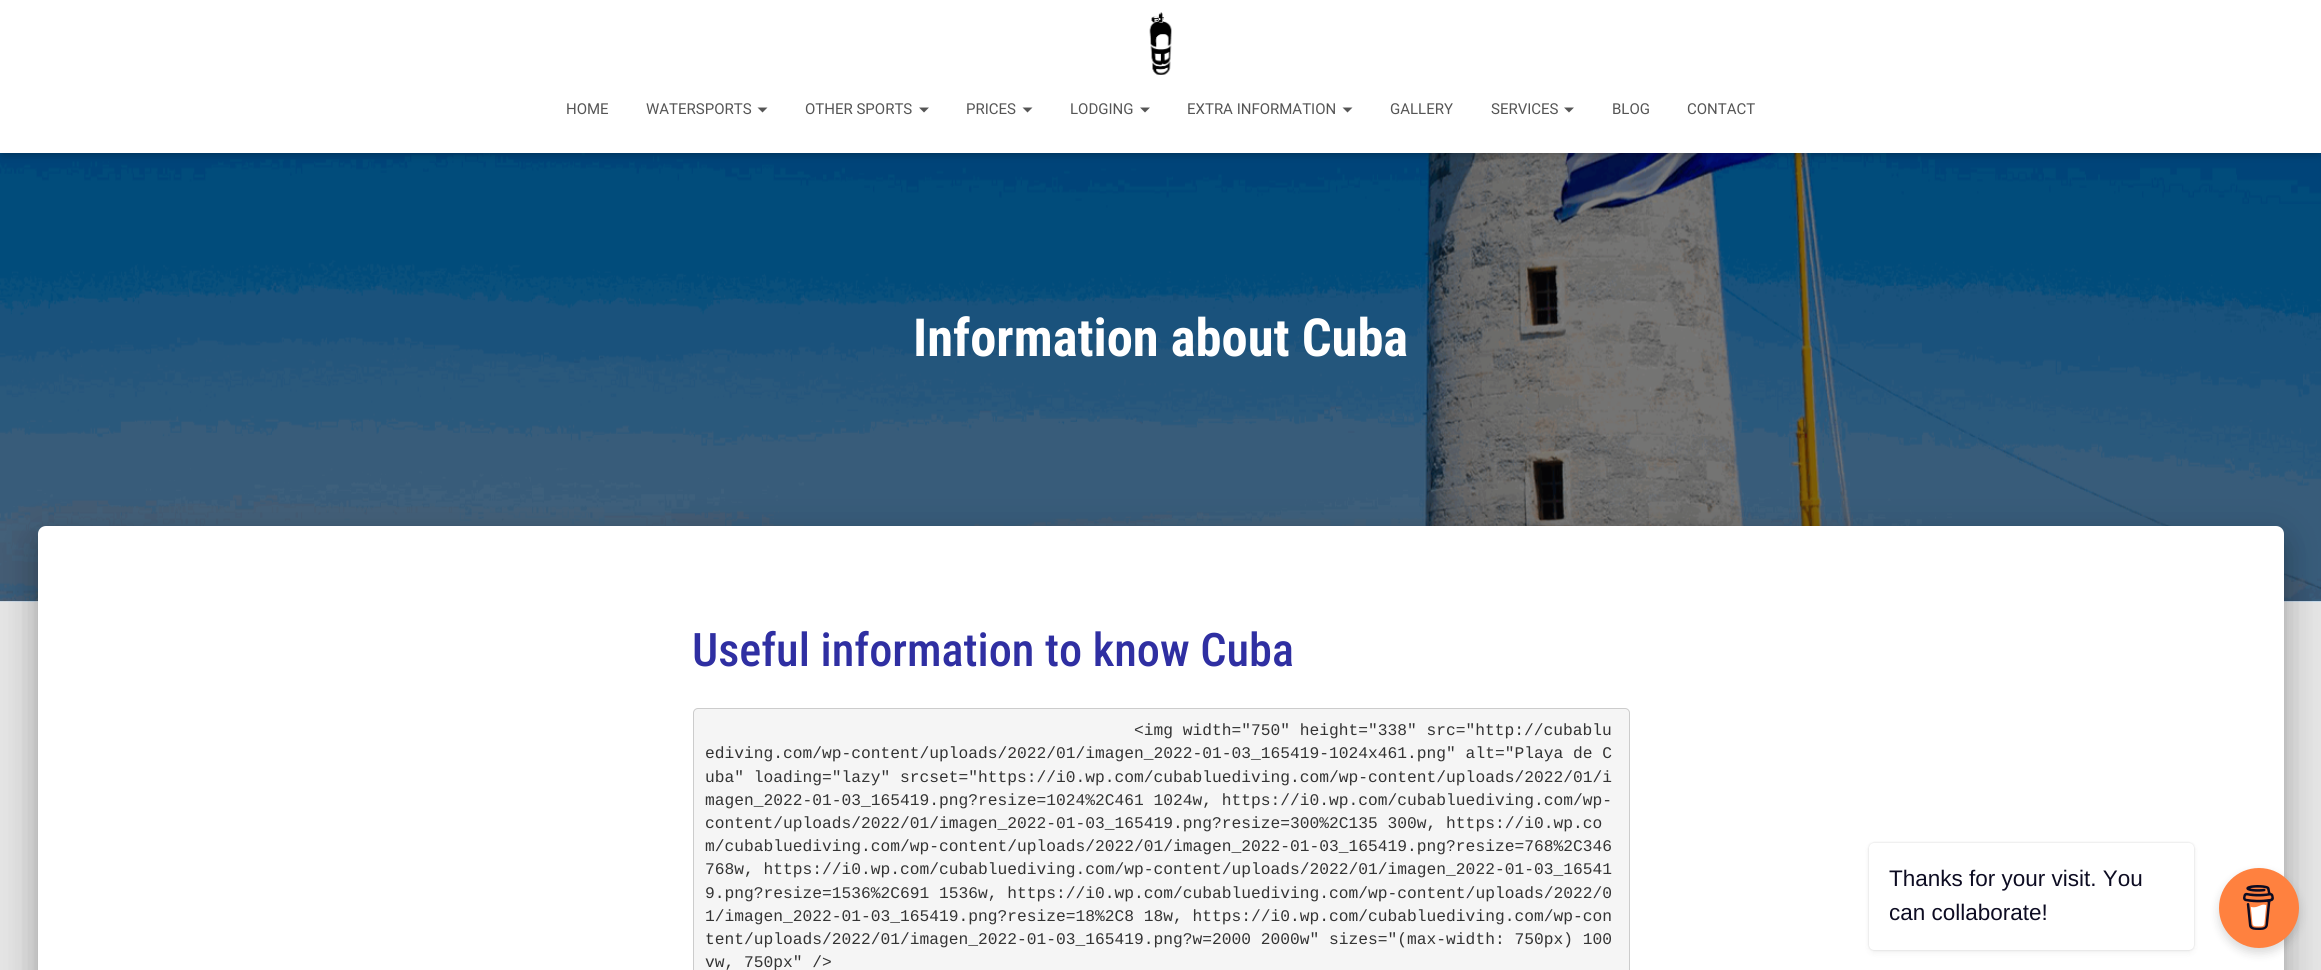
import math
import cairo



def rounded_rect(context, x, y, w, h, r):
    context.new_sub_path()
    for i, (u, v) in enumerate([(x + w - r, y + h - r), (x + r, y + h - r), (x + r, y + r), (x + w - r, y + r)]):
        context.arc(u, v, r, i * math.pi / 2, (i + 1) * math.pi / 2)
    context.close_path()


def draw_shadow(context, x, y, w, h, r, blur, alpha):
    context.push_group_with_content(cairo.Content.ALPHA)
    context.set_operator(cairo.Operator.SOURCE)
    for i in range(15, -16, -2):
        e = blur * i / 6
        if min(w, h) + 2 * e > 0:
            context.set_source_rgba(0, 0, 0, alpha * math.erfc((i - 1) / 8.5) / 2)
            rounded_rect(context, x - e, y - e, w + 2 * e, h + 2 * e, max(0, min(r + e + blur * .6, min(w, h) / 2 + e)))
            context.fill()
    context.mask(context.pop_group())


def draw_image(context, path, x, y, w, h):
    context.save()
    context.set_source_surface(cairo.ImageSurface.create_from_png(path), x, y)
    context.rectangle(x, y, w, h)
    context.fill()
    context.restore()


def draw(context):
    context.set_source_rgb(229 / 255, 229 / 255, 229 / 255)
    context.paint()
    draw_image(context, "images/2.png", 0, 153, 2321, 449)
    context.set_source_rgb(0, 0, 0)
    draw_shadow(context, 3, 8, 2316, 147, 0, 3, 0.1)
    draw_shadow(context, 0, 1, 2321, 153, 0, 6, 0.12)
    draw_shadow(context, 8, 9, 2306, 137, 0, 6, 0.42)
    context.set_source_rgb(1, 1, 1)
    context.rectangle(0, 0, 2321, 153)
    context.fill()
    draw_image(context, "images/1.png", 1149, 12, 23, 63)
    context.set_source_rgb(85 / 255, 85 / 255, 85 / 255)
    context.new_path()
    context.move_to(757.5, 107.5)
    context.line_to(767.5, 107.5)
    context.line_to(762.5, 112.5)
    context.close_path()
    context.fill()
    context.new_path()
    context.move_to(919, 107.5)
    context.line_to(929, 107.5)
    context.line_to(924, 112.5)
    context.close_path()
    context.fill()
    context.new_path()
    context.move_to(1022.5, 107.5)
    context.line_to(1032.5, 107.5)
    context.line_to(1027.5, 112.5)
    context.close_path()
    context.fill()
    context.new_path()
    context.move_to(1140, 107.5)
    context.line_to(1150, 107.5)
    context.line_to(1145, 112.5)
    context.close_path()
    context.fill()
    context.new_path()
    context.move_to(1342.5, 107.5)
    context.line_to(1352.5, 107.5)
    context.line_to(1347.5, 112.5)
    context.close_path()
    context.fill()
    context.new_path()
    context.move_to(1564, 107.5)
    context.line_to(1574, 107.5)
    context.line_to(1569, 112.5)
    context.close_path()
    context.fill()
    context.set_source_rgb(0, 0, 0)
    draw_shadow(context, 44, 543, 2234, 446, 1, 6, 0.2)
    draw_shadow(context, 31, 528, 2259, 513, 14, 19, 0.12)
    draw_shadow(context, 35, 544, 2251, 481, 10, 15, 0.14)
    context.set_source_rgb(1, 1, 1)
    context.new_path()
    context.move_to(46, 526)
    context.line_to(2276, 526)
    context.curve_to(2280.5, 526, 2284, 529.5, 2284, 534)
    context.line_to(2284, 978)
    context.line_to(38, 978)
    context.line_to(38, 534)
    context.curve_to(38, 529.5, 41.5, 526, 46, 526)
    context.close_path()
    context.fill()
    context.set_source_rgb(245 / 255, 245 / 255, 245 / 255)
    rounded_rect(context, 693.5, 708.5, 936, 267, 4.5)
    context.fill_preserve()
    context.set_source_rgb(204 / 255, 204 / 255, 204 / 255)
    context.set_line_width(1)
    context.stroke()
    context.set_source_rgb(0, 0, 0)
    draw_shadow(context, 1869, 843, 325, 107, 5, 1, 0.15)
    draw_shadow(context, 1869, 845, 325, 108, 5, 3, 0.05)
    context.set_source_rgb(1, 1, 1)
    rounded_rect(context, 1869, 843, 325, 107, 5)
    context.fill()
    context.set_source_rgb(0, 0, 0)
    draw_shadow(context, 2219, 873, 80, 80, 40, 5, 0.15)
    context.set_source_rgb(1, 129 / 255, 63 / 255)
    context.arc(2259, 908, 40, 0, 2 * math.pi)
    context.fill()
    draw_image(context, "images/3.png", 2243, 885, 31, 45)
    context.select_font_face("Roboto")
    context.set_font_size(15)
    context.set_source_rgb(85 / 255, 85 / 255, 85 / 255)
    context.move_to(566, 114)
    context.show_text("HOME")
    context.move_to(646, 114)
    context.show_text("WATERSPORTS")
    context.move_to(805, 114)
    context.show_text("OTHER SPORTS")
    context.move_to(966, 114)
    context.show_text("PRICES")
    context.move_to(1070, 114)
    context.show_text("LODGING")
    context.move_to(1187, 114)
    context.show_text("EXTRA INFORMATION")
    context.move_to(1390, 114)
    context.show_text("GALLERY")
    context.move_to(1491, 114)
    context.show_text("SERVICES")
    context.move_to(1612, 114)
    context.show_text("BLOG")
    context.move_to(1687, 114)
    context.show_text("CONTACT")
    context.select_font_face("Roboto Condensed", cairo.FontSlant.NORMAL, cairo.FontWeight.BOLD)
    context.set_font_size(52.5)
    context.set_source_rgb(1, 1, 1)
    context.move_to(913, 356)
    context.show_text("Information about Cuba")
    context.select_font_face("Roboto Condensed Medium")
    context.set_font_size(46.25)
    context.set_source_rgb(47 / 255, 47 / 255, 162 / 255)
    context.move_to(692, 666)
    context.show_text("Useful information to know Cuba")
    context.select_font_face("Liberation Mono")
    context.set_font_size(16.25)
    context.set_source_rgb(51 / 255, 51 / 255, 51 / 255)
    context.move_to(1134, 735)
    context.show_text("<img width=\"750\" height=\"338\" src=\"http://cubablu")
    context.move_to(705, 758)
    context.show_text("ediving.com/wp-content/uploads/2022/01/imagen_2022-01-03_165419-1024x461.png\" alt=\"Playa de C")
    context.move_to(705, 782)
    context.show_text("uba\" loading=\"lazy\" srcset=\"https://i0.wp.com/cubabluediving.com/wp-content/uploads/2022/01/i")
    context.move_to(705, 805)
    context.show_text("magen_2022-01-03_165419.png?resize=1024%2C461 1024w, https://i0.wp.com/cubabluediving.com/wp-")
    context.move_to(705, 828)
    context.show_text("content/uploads/2022/01/imagen_2022-01-03_165419.png?resize=300%2C135 300w, https://i0.wp.co")
    context.move_to(705, 851)
    context.show_text("m/cubabluediving.com/wp-content/uploads/2022/01/imagen_2022-01-03_165419.png?resize=768%2C346")
    context.move_to(705, 874)
    context.show_text("768w, https://i0.wp.com/cubabluediving.com/wp-content/uploads/2022/01/imagen_2022-01-03_16541")
    context.move_to(705, 898)
    context.show_text("9.png?resize=1536%2C691 1536w, https://i0.wp.com/cubabluediving.com/wp-content/uploads/2022/0")
    context.move_to(705, 921)
    context.show_text("1/imagen_2022-01-03_165419.png?resize=18%2C8 18w, https://i0.wp.com/cubabluediving.com/wp-con")
    context.move_to(705, 944)
    context.show_text("tent/uploads/2022/01/imagen_2022-01-03_165419.png?w=2000 2000w\" sizes=\"(max-width: 750px) 100")
    context.move_to(705, 967)
    context.show_text("vw, 750px\" />")
    context.select_font_face("Liberation Sans")
    context.set_font_size(22.5)
    context.set_source_rgb(13 / 255, 12 / 255, 34 / 255)
    context.move_to(1889, 886)
    context.show_text("Thanks for your visit. You")
    context.move_to(1889, 920)
    context.show_text("can collaborate!")


surface = cairo.ImageSurface(cairo.Format.RGB24, 2321, 970)
context = cairo.Context(surface)
options = cairo.FontOptions()
options.set_hint_metrics(cairo.HintMetrics.OFF)
options.set_hint_style(cairo.HintStyle.NONE)
context.set_font_options(options)
context.set_miter_limit(4)
draw(context)
surface.write_to_png("out.png")
